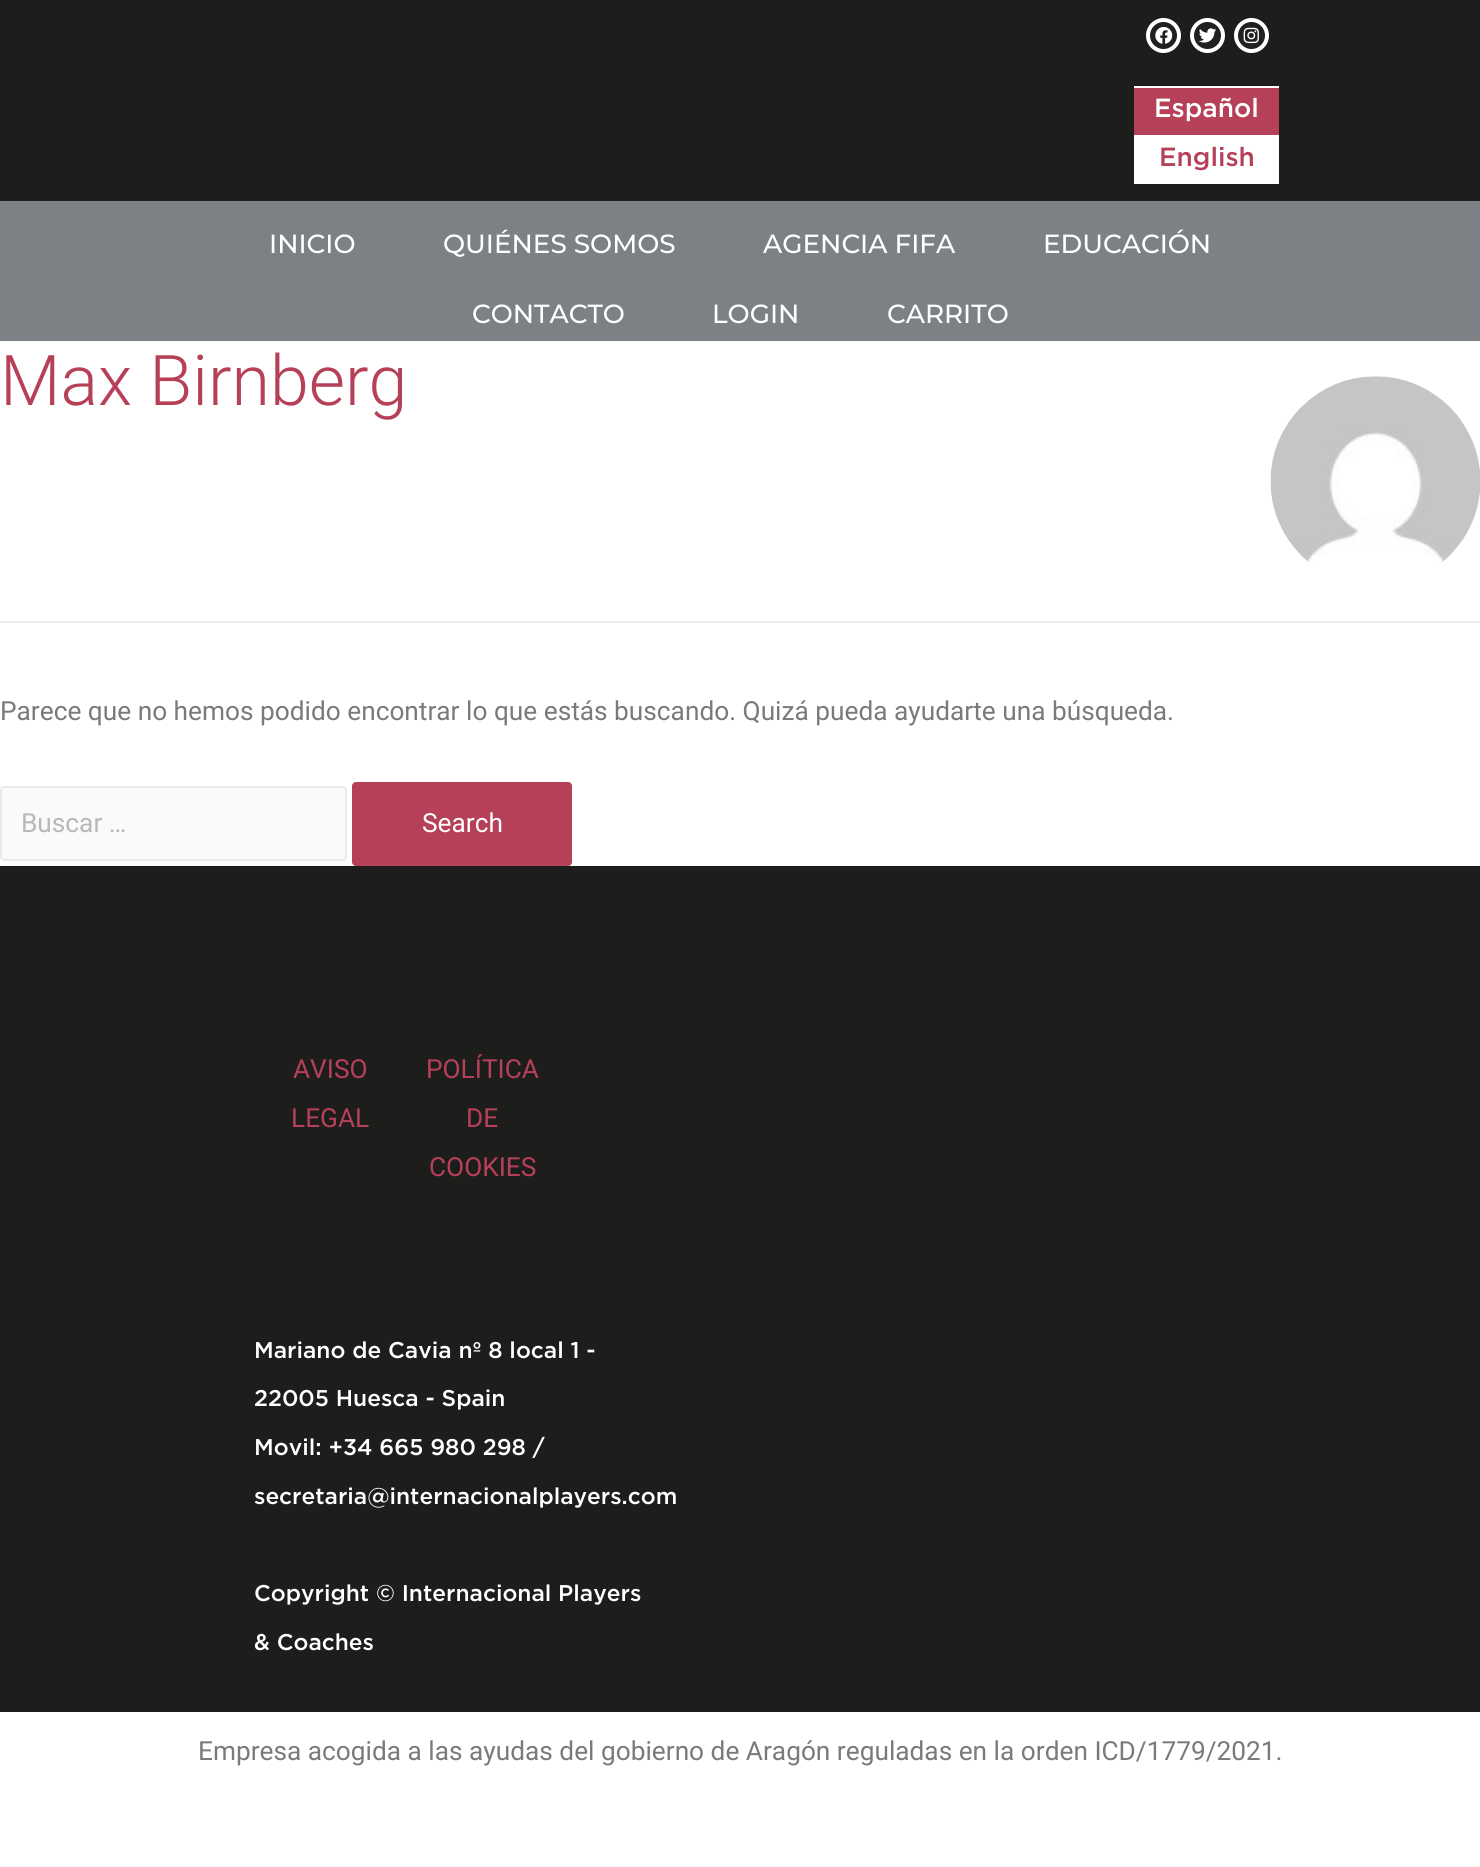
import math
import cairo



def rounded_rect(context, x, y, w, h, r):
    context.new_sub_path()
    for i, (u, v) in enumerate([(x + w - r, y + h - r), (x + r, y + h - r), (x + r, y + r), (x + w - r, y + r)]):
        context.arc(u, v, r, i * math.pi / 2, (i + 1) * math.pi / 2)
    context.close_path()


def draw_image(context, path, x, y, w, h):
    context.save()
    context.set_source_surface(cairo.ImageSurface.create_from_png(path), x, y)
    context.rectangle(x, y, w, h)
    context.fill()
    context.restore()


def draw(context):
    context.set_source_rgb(1, 1, 1)
    context.paint()
    context.set_source_rgb(29 / 255, 29 / 255, 27 / 255)
    context.rectangle(0, 0, 1480, 201)
    context.fill()
    context.set_source_rgb(32 / 255, 32 / 255, 30 / 255)
    context.arc(1163.5, 35.5, 15.5, 0, 2 * math.pi)
    context.fill_preserve()
    context.set_source_rgb(1, 1, 1)
    context.set_line_width(4)
    context.stroke()
    draw_image(context, "images/1.png", 1155, 27, 18, 17)
    context.set_source_rgb(32 / 255, 32 / 255, 30 / 255)
    context.arc(1207.5, 35.5, 15.5, 0, 2 * math.pi)
    context.fill_preserve()
    context.set_source_rgb(1, 1, 1)
    context.stroke()
    draw_image(context, "images/2.png", 1199, 28, 18, 15)
    context.set_source_rgb(32 / 255, 32 / 255, 30 / 255)
    context.arc(1251.5, 35.5, 15.5, 0, 2 * math.pi)
    context.fill_preserve()
    context.set_source_rgb(1, 1, 1)
    context.stroke()
    draw_image(context, "images/3.png", 1243, 27, 16, 17)
    context.rectangle(1134, 86, 145, 98)
    context.fill()
    context.set_source_rgb(183 / 255, 64 / 255, 89 / 255)
    context.rectangle(1134, 88, 145, 47)
    context.fill()
    context.set_source_rgb(125 / 255, 129 / 255, 134 / 255)
    context.rectangle(0, 201, 1480, 140)
    context.fill()
    context.set_source_rgb(238 / 255, 238 / 255, 238 / 255)
    context.rectangle(0, 621, 1480, 2)
    context.fill()
    draw_image(context, "images/4.png", 1270, 376, 210, 187)
    context.set_source_rgb(250 / 255, 250 / 255, 250 / 255)
    rounded_rect(context, 1, 787, 345, 73, 3)
    context.fill_preserve()
    context.set_source_rgb(234 / 255, 234 / 255, 234 / 255)
    context.set_line_width(2)
    context.stroke()
    context.set_source_rgb(183 / 255, 64 / 255, 89 / 255)
    rounded_rect(context, 352, 782, 220, 84, 4)
    context.fill()
    context.set_source_rgb(29 / 255, 29 / 255, 27 / 255)
    context.rectangle(0, 866, 1480, 846)
    context.fill()
    context.select_font_face("Gotham Medium")
    context.set_font_size(26.25)
    context.set_source_rgb(1, 1, 1)
    context.move_to(1154, 117)
    context.show_text("Español")
    context.set_source_rgb(183 / 255, 64 / 255, 89 / 255)
    context.move_to(1159, 166)
    context.show_text("English")
    context.select_font_face("Montserrat Medium")
    context.set_source_rgb(1, 1, 1)
    context.move_to(269, 253)
    context.show_text("INICIO")
    context.move_to(443, 253)
    context.show_text("QUIÉNES SOMOS")
    context.move_to(763, 253)
    context.show_text("AGENCIA FIFA")
    context.move_to(1043, 253)
    context.show_text("EDUCACIÓN")
    context.move_to(472, 323)
    context.show_text("CONTACTO")
    context.move_to(712, 323)
    context.show_text("LOGIN")
    context.move_to(887, 323)
    context.show_text("CARRITO")
    context.select_font_face("Roboto Light")
    context.set_font_size(70)
    context.set_source_rgb(183 / 255, 64 / 255, 89 / 255)
    context.move_to(0, 405)
    context.show_text("Max Birnberg")
    context.select_font_face("Roboto")
    context.set_font_size(26.25)
    context.set_source_rgb(122 / 255, 122 / 255, 122 / 255)
    context.move_to(0, 720)
    context.show_text("Parece que no hemos podido encontrar lo que estás buscando. Quizá pueda ayudarte una búsqueda.")
    context.set_source_rgb(184 / 255, 184 / 255, 184 / 255)
    context.move_to(21, 832)
    context.show_text("Buscar …")
    context.set_source_rgb(1, 1, 1)
    context.move_to(422, 832)
    context.show_text("Search")
    context.set_source_rgb(183 / 255, 64 / 255, 89 / 255)
    context.move_to(293, 1078)
    context.show_text("AVISO")
    context.move_to(291, 1127)
    context.show_text("LEGAL")
    context.move_to(426, 1078)
    context.show_text("POLÍTICA")
    context.move_to(466, 1127)
    context.show_text("DE")
    context.move_to(429, 1176)
    context.show_text("COOKIES")
    context.select_font_face("Gotham Medium")
    context.set_font_size(22.75)
    context.set_source_rgb(1, 1, 1)
    context.move_to(254, 1358)
    context.show_text("Mariano de Cavia nº 8 local 1 -")
    context.move_to(254, 1406)
    context.show_text("22005 Huesca - Spain")
    context.move_to(254, 1455)
    context.show_text("Movil: +34 665 980 298 /")
    context.move_to(254, 1504)
    context.show_text("secretaria@internacionalplayers.com")
    context.move_to(254, 1601)
    context.show_text("Copyright © Internacional Players")
    context.move_to(254, 1650)
    context.show_text("& Coaches")
    context.select_font_face("Roboto")
    context.set_font_size(26.25)
    context.set_source_rgb(122 / 255, 122 / 255, 122 / 255)
    context.move_to(198, 1760)
    context.show_text("Empresa acogida a las ayudas del gobierno de Aragón reguladas en la orden ICD/1779/2021.")


surface = cairo.ImageSurface(cairo.Format.RGB24, 1480, 1867)
context = cairo.Context(surface)
options = cairo.FontOptions()
options.set_hint_metrics(cairo.HintMetrics.OFF)
options.set_hint_style(cairo.HintStyle.NONE)
context.set_font_options(options)
context.set_miter_limit(4)
draw(context)
surface.write_to_png("out.png")
